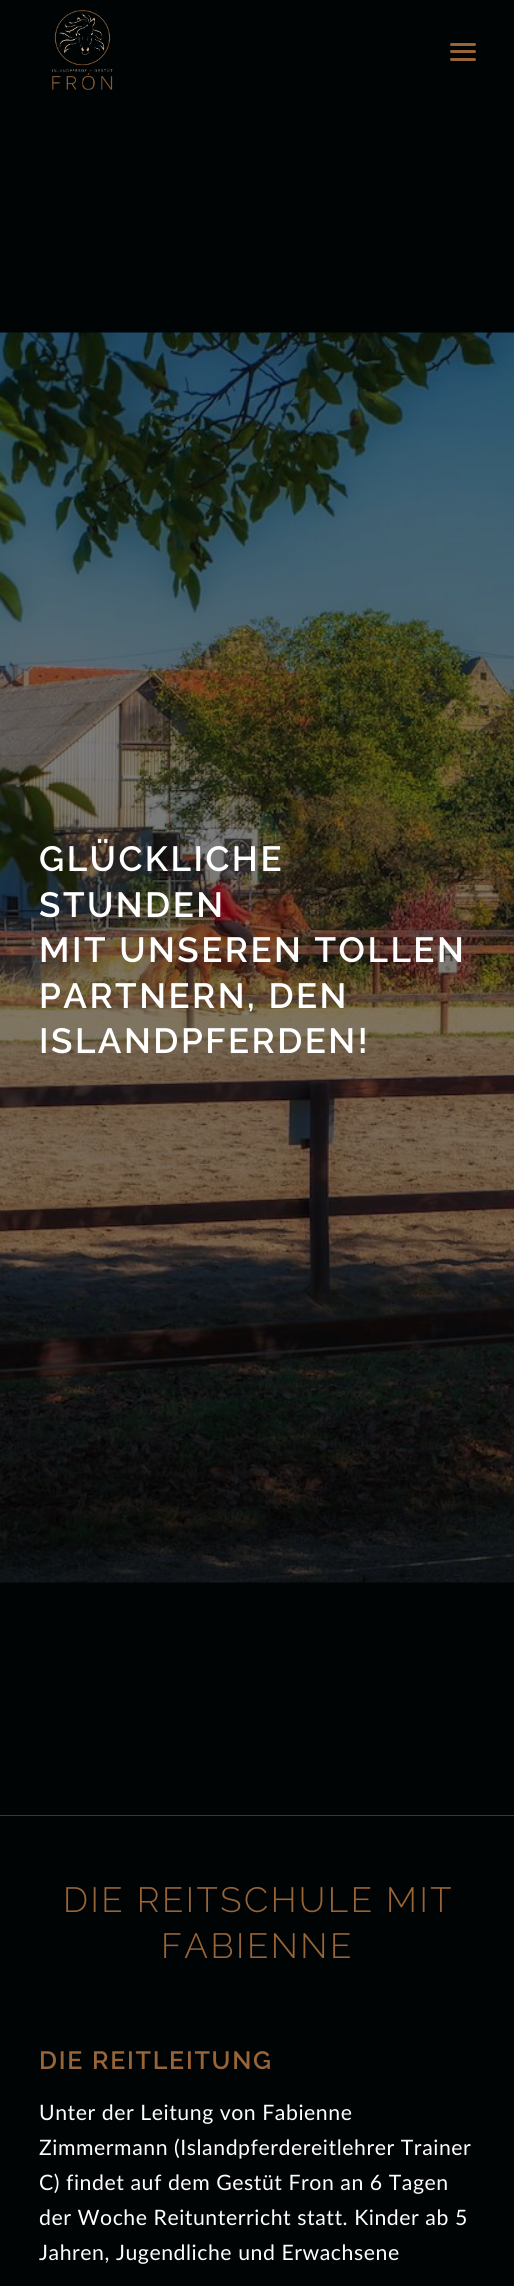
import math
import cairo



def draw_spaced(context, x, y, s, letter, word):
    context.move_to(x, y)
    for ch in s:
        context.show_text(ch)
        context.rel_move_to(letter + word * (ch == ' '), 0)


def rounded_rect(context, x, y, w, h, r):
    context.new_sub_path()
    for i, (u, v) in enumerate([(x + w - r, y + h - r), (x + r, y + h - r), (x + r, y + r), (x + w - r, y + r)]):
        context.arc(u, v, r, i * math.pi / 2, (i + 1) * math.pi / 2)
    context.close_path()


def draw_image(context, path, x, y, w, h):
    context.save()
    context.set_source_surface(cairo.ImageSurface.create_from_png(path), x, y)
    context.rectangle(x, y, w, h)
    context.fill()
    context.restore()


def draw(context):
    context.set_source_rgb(1 / 255, 4 / 255, 5 / 255)
    context.paint()
    draw_image(context, "images/1.png", 52, 10, 61, 80)
    context.set_source_rgb(152 / 255, 101 / 255, 56 / 255)
    rounded_rect(context, 450, 50, 26, 3, 1.5)
    context.fill()
    rounded_rect(context, 450, 43, 26, 3, 1.5)
    context.fill()
    rounded_rect(context, 450, 58, 26, 3, 1.5)
    context.fill()
    draw_image(context, "images/2.png", 0, 332, 514, 1251)
    context.set_source_rgb(52 / 255, 57 / 255, 65 / 255)
    context.rectangle(0, 1815, 514, 1)
    context.fill()
    context.select_font_face("Raleway SemiBold")
    context.set_font_size(35)
    context.set_source_rgb(1, 1, 1)
    draw_spaced(context, 39, 871, "GLÜCKLICHE", 2.5, 0)
    draw_spaced(context, 39, 917, "STUNDEN", 2.5, 0)
    draw_spaced(context, 39, 962, "MIT UNSEREN TOLLEN", 2.5, 0)
    draw_spaced(context, 39, 1008, "PARTNERN, DEN", 2.5, 0)
    draw_spaced(context, 39, 1053, "ISLANDPFERDEN!", 2.5, 0)
    context.select_font_face("Raleway Light")
    context.set_source_rgb(152 / 255, 101 / 255, 56 / 255)
    draw_spaced(context, 63, 1912, "DIE REITSCHULE MIT", 2.5, 0)
    draw_spaced(context, 161, 1958, "FABIENNE", 2.5, 0)
    context.select_font_face("Raleway SemiBold")
    context.set_font_size(25)
    draw_spaced(context, 39, 2069, "DIE REITLEITUNG", 1.75, 0)
    context.select_font_face("Lato")
    context.set_font_size(21.25)
    context.set_source_rgb(1, 1, 1)
    draw_spaced(context, 39, 2120, "Unter der Leitung von Fabienne", 0.55, 0)
    draw_spaced(context, 39, 2155, "Zimmermann (Islandpferdereitlehrer Trainer", 0.55, 0)
    draw_spaced(context, 39, 2190, "C) findet auf dem Gestüt Fron an 6 Tagen", 0.55, 0)
    draw_spaced(context, 39, 2225, "der Woche Reitunterricht statt. Kinder ab 5", 0.55, 0)
    draw_spaced(context, 39, 2260, "Jahren, Jugendliche und Erwachsene", 0.55, 0)


surface = cairo.ImageSurface(cairo.Format.RGB24, 514, 2286)
context = cairo.Context(surface)
options = cairo.FontOptions()
options.set_hint_metrics(cairo.HintMetrics.OFF)
options.set_hint_style(cairo.HintStyle.NONE)
context.set_font_options(options)
context.set_miter_limit(4)
draw(context)
surface.write_to_png("out.png")
